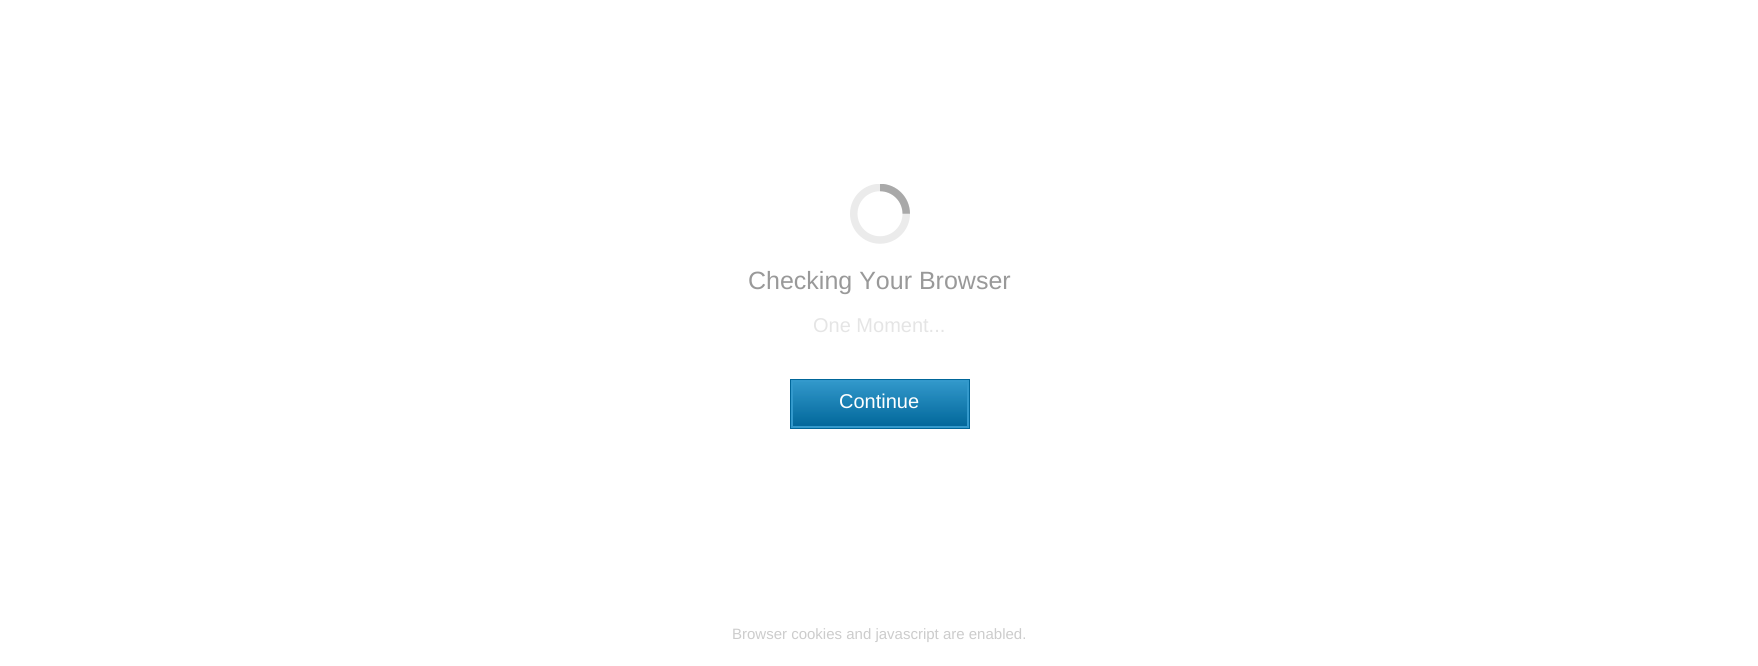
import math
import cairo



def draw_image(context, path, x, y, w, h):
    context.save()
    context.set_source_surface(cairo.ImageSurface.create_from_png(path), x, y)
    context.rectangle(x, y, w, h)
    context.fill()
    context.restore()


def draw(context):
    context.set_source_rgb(1, 1, 1)
    context.paint()
    draw_image(context, "images/1.png", 850, 184, 60, 60)
    context.set_source_rgb(0, 102 / 255, 153 / 255)
    context.rectangle(791.5, 380.5, 177, 47)
    context.fill_preserve()
    context.set_source_rgb(51 / 255, 153 / 255, 204 / 255)
    context.set_line_width(3)
    context.stroke()
    gradient = cairo.LinearGradient(880, 380, 880, 428)
    gradient.add_color_stop_rgba(0, 51 / 255, 153 / 255, 204 / 255, 1)
    gradient.add_color_stop_rgba(1, 51 / 255, 153 / 255, 204 / 255, 0)
    context.set_source(gradient)
    context.rectangle(793, 382, 174, 44)
    context.fill()
    context.rectangle(790.5, 379.5, 179, 49)
    context.set_source_rgb(0, 102 / 255, 153 / 255)
    context.set_line_width(1)
    context.stroke()
    context.select_font_face("Liberation Sans")
    context.set_font_size(25)
    context.set_source_rgb(153 / 255, 153 / 255, 153 / 255)
    context.move_to(748, 289)
    context.show_text("Checking Your Browser")
    context.set_font_size(20)
    context.set_source_rgb(229 / 255, 229 / 255, 229 / 255)
    context.move_to(813, 332)
    context.show_text("One Moment...")
    context.set_source_rgb(1, 1, 1)
    context.move_to(839, 408)
    context.show_text("Continue")
    context.set_font_size(15)
    context.set_source_rgb(204 / 255, 204 / 255, 204 / 255)
    context.move_to(732, 639)
    context.show_text("Browser cookies and javascript are enabled.")


surface = cairo.ImageSurface(cairo.Format.RGB24, 1758, 666)
context = cairo.Context(surface)
options = cairo.FontOptions()
options.set_hint_metrics(cairo.HintMetrics.OFF)
options.set_hint_style(cairo.HintStyle.NONE)
context.set_font_options(options)
context.set_miter_limit(4)
draw(context)
surface.write_to_png("out.png")
